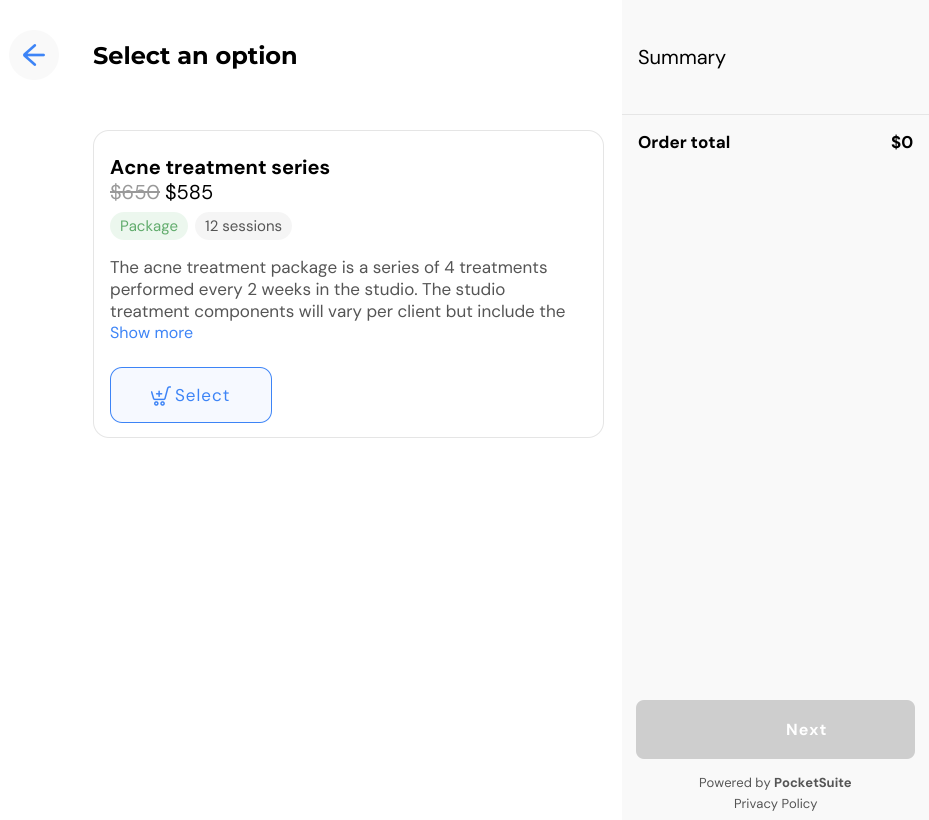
import math
import cairo



def draw_spaced(context, x, y, s, letter, word):
    context.move_to(x, y)
    for ch in s:
        context.show_text(ch)
        context.rel_move_to(letter + word * (ch == ' '), 0)


def rounded_rect(context, x, y, w, h, r):
    context.new_sub_path()
    for i, (u, v) in enumerate([(x + w - r, y + h - r), (x + r, y + h - r), (x + r, y + r), (x + w - r, y + r)]):
        context.arc(u, v, r, i * math.pi / 2, (i + 1) * math.pi / 2)
    context.close_path()


def draw_image(context, path, x, y, w, h):
    context.save()
    context.set_source_surface(cairo.ImageSurface.create_from_png(path), x, y)
    context.rectangle(x, y, w, h)
    context.fill()
    context.restore()


def draw(context):
    context.set_source_rgb(1, 1, 1)
    context.paint()
    draw_image(context, "images/1.png", 9, 30, 50, 50)
    rounded_rect(context, 93.5, 130.5, 510, 307, 15.5)
    context.set_source_rgb(229 / 255, 229 / 255, 229 / 255)
    context.set_line_width(1)
    context.stroke()
    context.set_source_rgb(153 / 255, 153 / 255, 153 / 255)
    context.rectangle(110, 191, 50, 2)
    context.fill()
    context.set_source_rgb(236 / 255, 247 / 255, 238 / 255)
    rounded_rect(context, 110, 212, 78, 28, 14)
    context.fill()
    context.set_source_rgb(245 / 255, 245 / 255, 245 / 255)
    rounded_rect(context, 195, 212, 97, 28, 14)
    context.fill()
    context.set_source_rgb(246 / 255, 249 / 255, 1)
    rounded_rect(context, 110.5, 367.5, 161, 55, 11.5)
    context.fill_preserve()
    context.set_source_rgb(61 / 255, 132 / 255, 246 / 255)
    context.stroke()
    draw_image(context, "images/2.png", 151, 386, 20, 20)
    context.set_source_rgb(249 / 255, 249 / 255, 249 / 255)
    context.rectangle(622, 0, 307, 820)
    context.fill()
    context.set_source_rgb(230 / 255, 230 / 255, 230 / 255)
    context.rectangle(622, 114, 307, 1)
    context.fill()
    context.set_source_rgb(206 / 255, 206 / 255, 206 / 255)
    rounded_rect(context, 636, 700, 279, 59, 8)
    context.fill()
    context.select_font_face("Montserrat", cairo.FontSlant.NORMAL, cairo.FontWeight.BOLD)
    context.set_font_size(24)
    context.set_source_rgb(0, 0, 0)
    context.move_to(93, 64)
    context.show_text("Select an option")
    context.select_font_face("DM Sans", cairo.FontSlant.NORMAL, cairo.FontWeight.BOLD)
    context.set_font_size(20)
    context.move_to(110, 174)
    context.show_text("Acne treatment series")
    context.select_font_face("DM Sans")
    context.set_source_rgb(153 / 255, 153 / 255, 153 / 255)
    context.move_to(110, 199)
    context.show_text("$650")
    context.set_source_rgb(0, 0, 0)
    context.move_to(165, 199)
    context.show_text("$585")
    context.set_font_size(15)
    context.set_source_rgb(96 / 255, 171 / 255, 107 / 255)
    context.move_to(120, 231)
    context.show_text("Package")
    context.set_source_rgb(85 / 255, 85 / 255, 85 / 255)
    context.move_to(205, 231)
    context.show_text("12 sessions")
    context.set_font_size(17)
    context.move_to(110, 273)
    context.show_text("The acne treatment package is a series of 4 treatments")
    context.move_to(110, 295)
    context.show_text("performed every 2 weeks in the studio. The studio")
    context.move_to(110, 317)
    context.show_text("treatment components will vary per client but include the")
    context.set_font_size(16)
    context.set_source_rgb(61 / 255, 132 / 255, 246 / 255)
    context.move_to(110, 338)
    context.show_text("Show more")
    context.set_font_size(17)
    draw_spaced(context, 175, 401, "Select", 1, 0)
    context.set_font_size(20)
    context.set_source_rgb(0, 0, 0)
    context.move_to(638, 64)
    context.show_text("Summary")
    context.select_font_face("DM Sans", cairo.FontSlant.NORMAL, cairo.FontWeight.BOLD)
    context.set_font_size(17)
    context.move_to(638, 148)
    context.show_text("Order total")
    context.move_to(891, 148)
    context.show_text("$0")
    context.set_font_size(16)
    context.set_source_rgb(1, 1, 1)
    draw_spaced(context, 786, 735, "Next", 1, 0)
    context.select_font_face("DM Sans")
    context.set_font_size(13)
    context.set_source_rgb(85 / 255, 85 / 255, 85 / 255)
    context.move_to(699, 787)
    context.show_text("Powered by")
    context.select_font_face("DM Sans", cairo.FontSlant.NORMAL, cairo.FontWeight.BOLD)
    context.move_to(774, 787)
    context.show_text("PocketSuite")
    context.select_font_face("DM Sans")
    context.move_to(734, 808)
    context.show_text("Privacy Policy")


surface = cairo.ImageSurface(cairo.Format.RGB24, 929, 820)
context = cairo.Context(surface)
options = cairo.FontOptions()
options.set_hint_metrics(cairo.HintMetrics.OFF)
options.set_hint_style(cairo.HintStyle.NONE)
context.set_font_options(options)
context.set_miter_limit(4)
draw(context)
surface.write_to_png("out.png")
